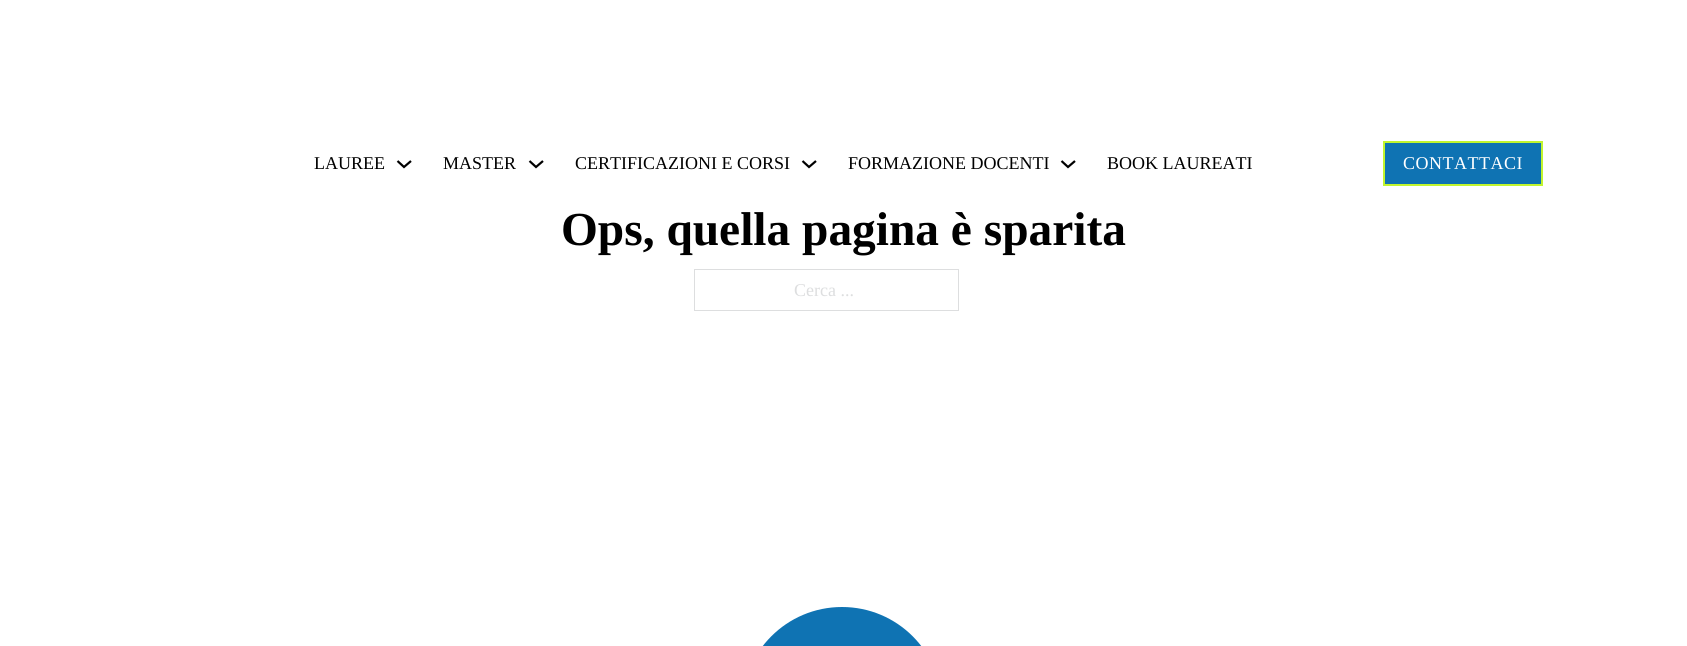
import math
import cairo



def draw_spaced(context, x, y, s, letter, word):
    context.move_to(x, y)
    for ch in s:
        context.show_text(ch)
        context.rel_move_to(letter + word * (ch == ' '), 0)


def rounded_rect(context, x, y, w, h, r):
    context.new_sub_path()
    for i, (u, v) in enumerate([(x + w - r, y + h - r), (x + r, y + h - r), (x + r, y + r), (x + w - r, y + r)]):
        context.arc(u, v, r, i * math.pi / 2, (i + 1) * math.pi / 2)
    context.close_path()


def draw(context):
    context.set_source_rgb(1, 1, 1)
    context.paint()
    context.new_path()
    context.move_to(397.5, 161)
    context.line_to(404, 167)
    context.line_to(411, 161)
    context.set_source_rgb(0, 0, 0)
    context.set_line_width(2.2)
    context.stroke()
    context.new_path()
    context.move_to(529.5, 161)
    context.line_to(536, 167)
    context.line_to(543, 161)
    context.stroke()
    context.new_path()
    context.move_to(802.5, 161)
    context.line_to(809, 167)
    context.line_to(816, 161)
    context.stroke()
    context.new_path()
    context.move_to(1061.5, 161)
    context.line_to(1068, 167)
    context.line_to(1075, 161)
    context.stroke()
    context.set_source_rgb(15 / 255, 115 / 255, 179 / 255)
    context.rectangle(1384, 142, 158, 43)
    context.fill_preserve()
    context.set_source_rgb(193 / 255, 245 / 255, 47 / 255)
    context.set_line_width(2)
    context.stroke()
    context.rectangle(694.5, 269.5, 264, 41)
    context.set_source_rgb(221 / 255, 222 / 255, 223 / 255)
    context.set_line_width(1)
    context.stroke()
    context.set_source_rgb(15 / 255, 115 / 255, 179 / 255)
    rounded_rect(context, 742, 607, 200, 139, 100)
    context.fill()
    context.select_font_face("Liberation Serif")
    context.set_font_size(18)
    context.set_source_rgb(0, 0, 0)
    context.move_to(314, 169)
    context.show_text("LAUREE")
    context.move_to(443, 169)
    context.show_text("MASTER")
    context.move_to(575, 169)
    context.show_text("CERTIFICAZIONI E CORSI")
    context.move_to(848, 169)
    context.show_text("FORMAZIONE DOCENTI")
    context.move_to(1107, 169)
    context.show_text("BOOK LAUREATI")
    context.set_source_rgb(1, 1, 1)
    draw_spaced(context, 1403, 169, "CONTATTACI", 0.5, 0)
    context.select_font_face("Liberation Serif", cairo.FontSlant.NORMAL, cairo.FontWeight.BOLD)
    context.set_font_size(47.4)
    context.set_source_rgb(0, 0, 0)
    context.move_to(561, 245)
    context.show_text("Ops, quella pagina è sparita")
    context.select_font_face("Liberation Serif")
    context.set_font_size(18)
    context.set_source_rgb(221 / 255, 222 / 255, 223 / 255)
    context.move_to(794, 296)
    context.show_text("Cerca ...")


surface = cairo.ImageSurface(cairo.Format.RGB24, 1687, 646)
context = cairo.Context(surface)
options = cairo.FontOptions()
options.set_hint_metrics(cairo.HintMetrics.OFF)
options.set_hint_style(cairo.HintStyle.NONE)
context.set_font_options(options)
context.set_miter_limit(4)
draw(context)
surface.write_to_png("out.png")
